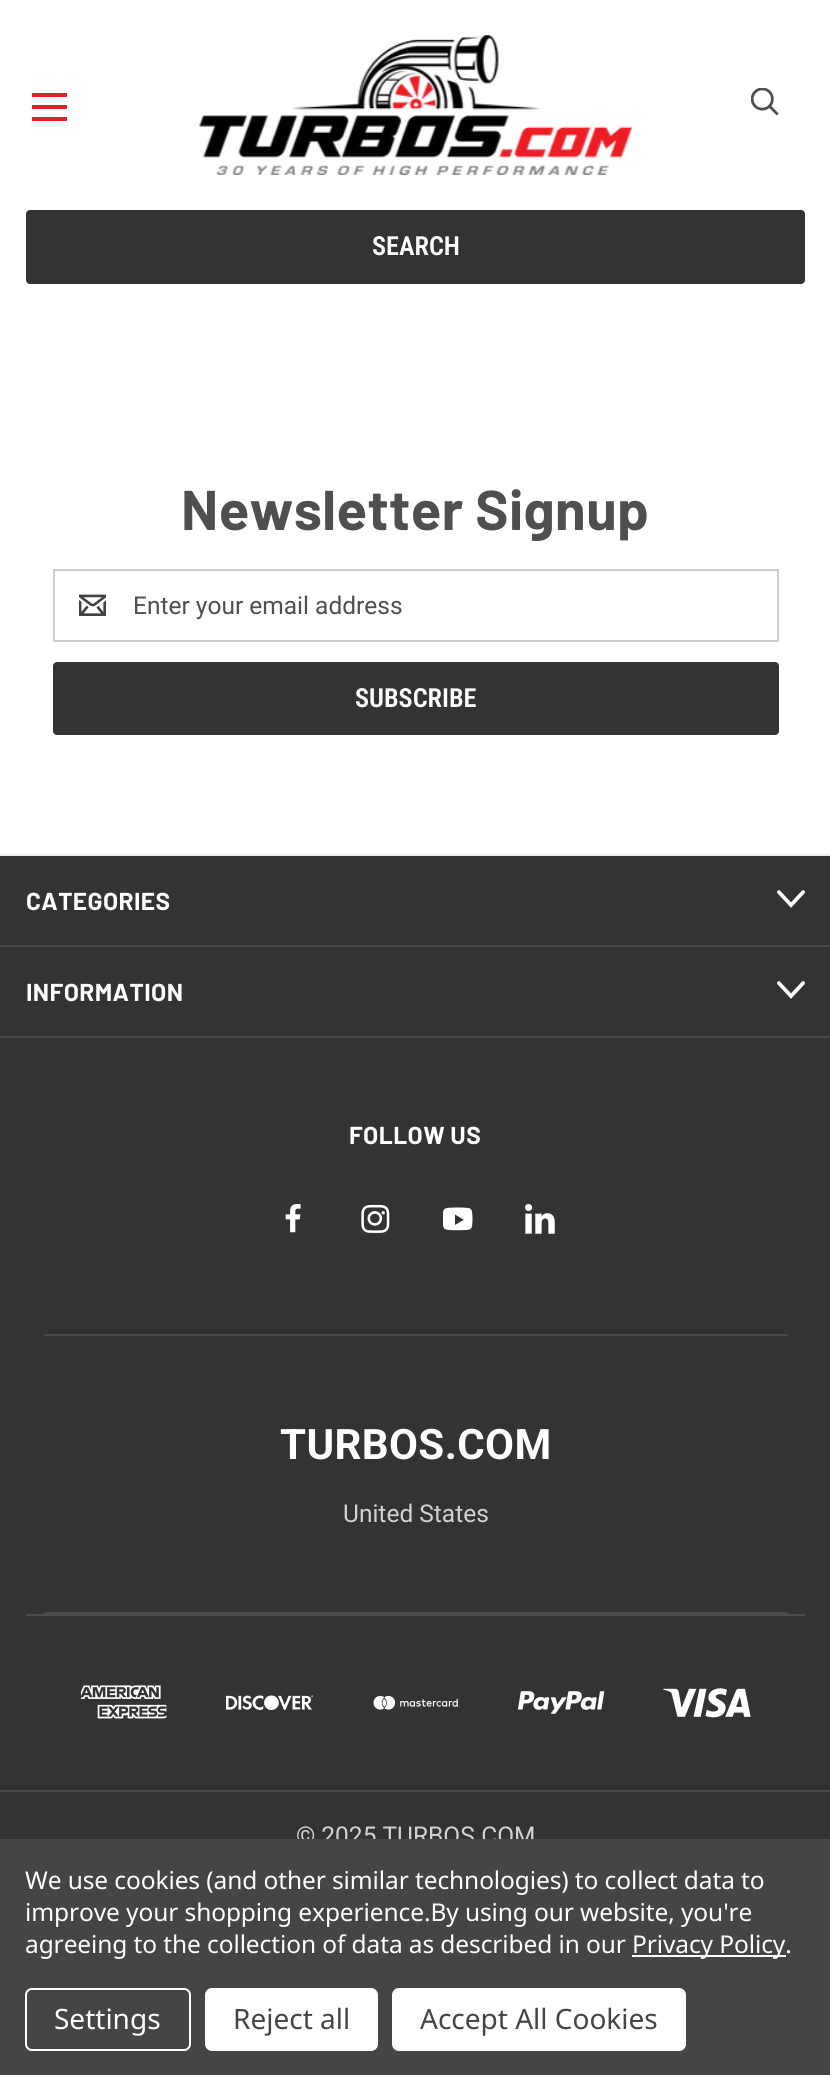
import math
import cairo



def draw_spaced(context, x, y, s, letter, word):
    context.move_to(x, y)
    for ch in s:
        context.show_text(ch)
        context.rel_move_to(letter + word * (ch == ' '), 0)


def rounded_rect(context, x, y, w, h, r):
    context.new_sub_path()
    for i, (u, v) in enumerate([(x + w - r, y + h - r), (x + r, y + h - r), (x + r, y + r), (x + w - r, y + r)]):
        context.arc(u, v, r, i * math.pi / 2, (i + 1) * math.pi / 2)
    context.close_path()


def draw_image(context, path, x, y, w, h):
    context.save()
    context.set_source_surface(cairo.ImageSurface.create_from_png(path), x, y)
    context.rectangle(x, y, w, h)
    context.fill()
    context.restore()


def draw(context):
    context.set_source_rgb(1, 1, 1)
    context.paint()
    context.set_source_rgb(237 / 255, 28 / 255, 36 / 255)
    context.rectangle(32, 105, 35, 4)
    context.fill()
    context.rectangle(32, 93, 35, 4)
    context.fill()
    context.rectangle(32, 117, 35, 4)
    context.fill()
    draw_image(context, "images/1.png", 198, 35, 434, 140)
    draw_image(context, "images/2.png", 751, 88, 28, 28)
    context.set_source_rgb(51 / 255, 51 / 255, 51 / 255)
    rounded_rect(context, 26, 210, 779, 74, 4)
    context.fill()
    context.rectangle(54, 570, 724, 71)
    context.set_source_rgb(204 / 255, 204 / 255, 204 / 255)
    context.stroke()
    draw_image(context, "images/3.png", 79, 594, 27, 22)
    context.set_source_rgb(51 / 255, 51 / 255, 51 / 255)
    rounded_rect(context, 53, 662, 726, 73, 4)
    context.fill()
    context.rectangle(0, 856, 830, 983)
    context.fill()
    context.set_source_rgb(235 / 255, 235 / 255, 235 / 255)
    context.rectangle(0, 854, 830, 2)
    context.fill()
    context.set_source_rgb(74 / 255, 74 / 255, 74 / 255)
    context.rectangle(0, 945, 830, 2)
    context.fill()
    draw_image(context, "images/4.png", 777, 890, 28, 18)
    context.rectangle(0, 1036, 830, 2)
    context.fill()
    draw_image(context, "images/4.png", 777, 981, 28, 18)
    context.rectangle(44, 1334, 744, 2)
    context.fill()
    draw_image(context, "images/5.png", 285, 1204, 16, 29)
    draw_image(context, "images/6.png", 361, 1204, 29, 29)
    draw_image(context, "images/7.png", 443, 1207, 30, 24)
    draw_image(context, "images/8.png", 525, 1204, 30, 30)
    context.rectangle(44, 1612, 744, 2)
    context.fill()
    context.set_source_rgb(78 / 255, 78 / 255, 78 / 255)
    context.rectangle(26, 1614, 779, 2)
    context.fill()
    context.set_source_rgb(74 / 255, 74 / 255, 74 / 255)
    context.rectangle(0, 1790, 830, 2)
    context.fill()
    draw_image(context, "images/9.png", 81, 1685, 86, 34)
    draw_image(context, "images/10.png", 226, 1695, 87, 15)
    draw_image(context, "images/11.png", 373, 1695, 87, 15)
    draw_image(context, "images/12.png", 518, 1691, 87, 23)
    draw_image(context, "images/13.png", 663, 1688, 88, 30)
    context.select_font_face("Roboto Condensed SemiBold")
    context.set_font_size(26.25)
    context.set_source_rgb(1, 1, 1)
    context.move_to(372, 255)
    context.show_text("SEARCH")
    context.select_font_face("Barlow", cairo.FontSlant.NORMAL, cairo.FontWeight.BOLD)
    context.set_font_size(56)
    context.set_source_rgb(79 / 255, 79 / 255, 79 / 255)
    draw_spaced(context, 181, 530, "Newsletter Signup", 0.4, 0)
    context.select_font_face("Roboto")
    context.set_font_size(24.5)
    context.move_to(133, 614)
    context.show_text("Enter your email address")
    context.select_font_face("Roboto Condensed SemiBold")
    context.set_font_size(26.25)
    context.set_source_rgb(1, 1, 1)
    context.move_to(355, 707)
    context.show_text("SUBSCRIBE")
    context.select_font_face("Barlow", cairo.FontSlant.NORMAL, cairo.FontWeight.BOLD)
    context.set_font_size(24.5)
    draw_spaced(context, 26, 910, "CATEGORIES", 0.4, 0)
    draw_spaced(context, 26, 1001, "INFORMATION", 0.4, 0)
    draw_spaced(context, 349, 1144, "FOLLOW US", 0.4, 0)
    context.select_font_face("Roboto", cairo.FontSlant.NORMAL, cairo.FontWeight.BOLD)
    context.set_font_size(42)
    draw_spaced(context, 280, 1459, "TURBOS.COM", 0.4, 0)
    context.select_font_face("Roboto")
    context.set_font_size(24.5)
    context.set_source_rgb(210 / 255, 210 / 255, 210 / 255)
    context.move_to(343, 1522)
    context.show_text("United States")
    context.move_to(296, 1844)
    context.show_text("© 2025 TURBOS.COM")
    context.set_source_rgb(69 / 255, 69 / 255, 69 / 255)
    context.rectangle(0, 1839, 830, 236)
    context.fill()
    context.select_font_face("Noto Sans")
    context.set_source_rgb(1, 1, 1)
    draw_spaced(context, 25, 1889, "We use cookies (and other similar technologies) to collect data to", -0.1, 0)
    draw_spaced(context, 25, 1921, "improve your shopping experience.By using our website, you're", -0.1, 0)
    draw_spaced(context, 25, 1953, "agreeing to the collection of data as described in our", -0.1, 0)
    context.rectangle(632, 1955, 154, 2)
    context.fill()
    draw_spaced(context, 632, 1953, "Privacy Policy.", -0.1, 0)
    rounded_rect(context, 26, 1989, 164, 61, 6)
    context.stroke()
    context.set_font_size(28)
    context.move_to(54, 2029)
    context.show_text("Settings")
    rounded_rect(context, 205, 1988, 173, 63, 7)
    context.fill()
    context.set_source_rgb(69 / 255, 69 / 255, 69 / 255)
    context.move_to(233, 2029)
    context.show_text("Reject all")
    context.set_source_rgb(1, 1, 1)
    rounded_rect(context, 392, 1988, 294, 63, 7)
    context.fill()
    context.set_source_rgb(69 / 255, 69 / 255, 69 / 255)
    context.move_to(420, 2029)
    context.show_text("Accept All Cookies")


surface = cairo.ImageSurface(cairo.Format.RGB24, 830, 2075)
context = cairo.Context(surface)
options = cairo.FontOptions()
options.set_hint_metrics(cairo.HintMetrics.OFF)
options.set_hint_style(cairo.HintStyle.NONE)
context.set_font_options(options)
context.set_miter_limit(4)
draw(context)
surface.write_to_png("out.png")
